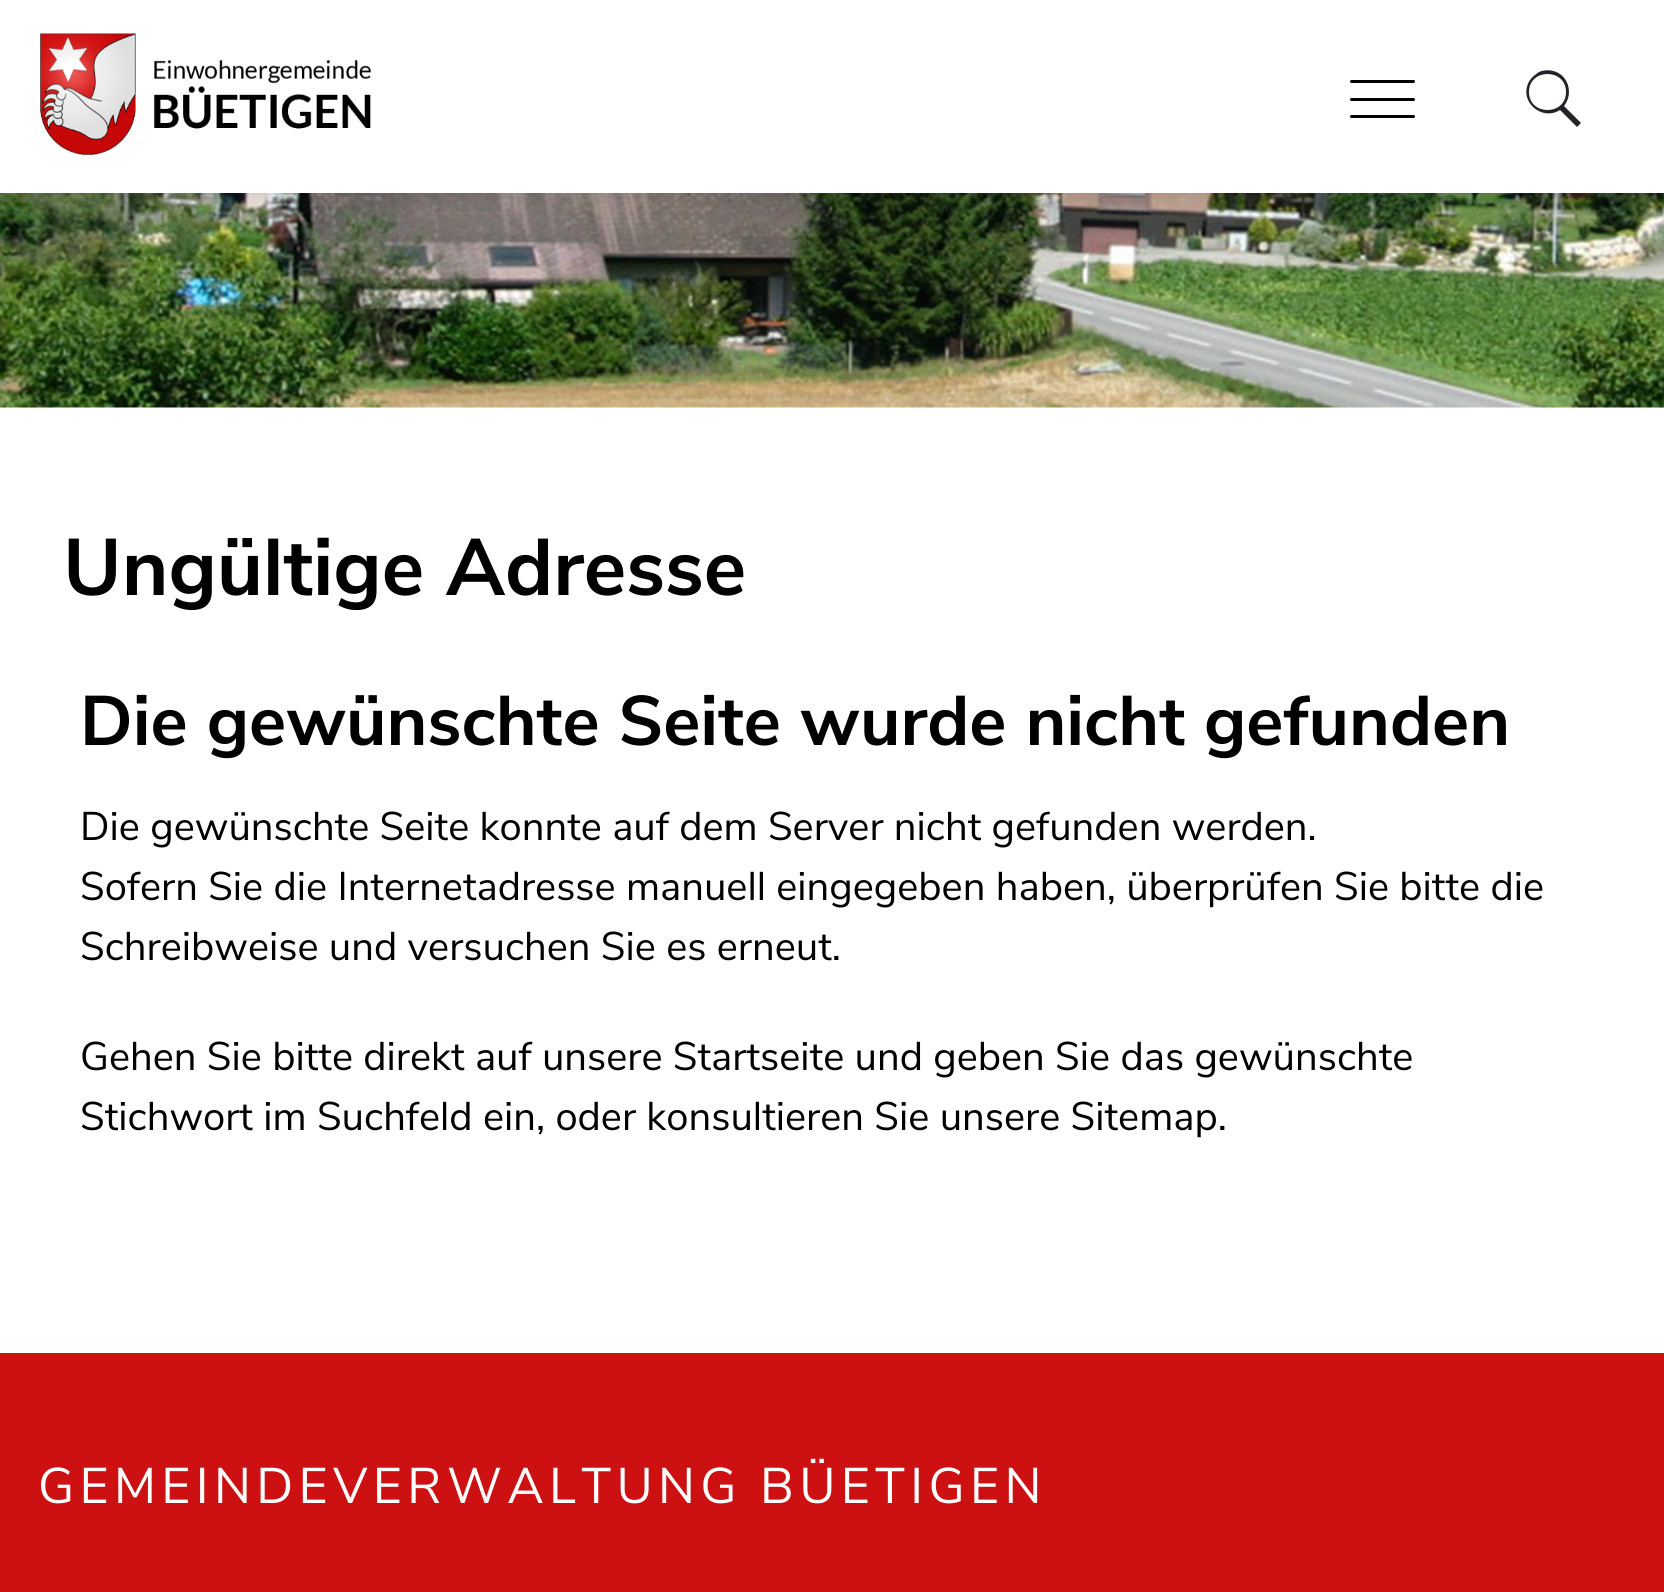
import math
import cairo



def draw_spaced(context, x, y, s, letter, word):
    context.move_to(x, y)
    for ch in s:
        context.show_text(ch)
        context.rel_move_to(letter + word * (ch == ' '), 0)


def rounded_rect(context, x, y, w, h, r):
    context.new_sub_path()
    for i, (u, v) in enumerate([(x + w - r, y + h - r), (x + r, y + h - r), (x + r, y + r), (x + w - r, y + r)]):
        context.arc(u, v, r, i * math.pi / 2, (i + 1) * math.pi / 2)
    context.close_path()


def draw_shadow(context, x, y, w, h, r, blur, alpha):
    context.push_group_with_content(cairo.Content.ALPHA)
    context.set_operator(cairo.Operator.SOURCE)
    for i in range(15, -16, -2):
        e = blur * i / 6
        if min(w, h) + 2 * e > 0:
            context.set_source_rgba(0, 0, 0, alpha * math.erfc((i - 1) / 8.5) / 2)
            rounded_rect(context, x - e, y - e, w + 2 * e, h + 2 * e, max(0, min(r + e + blur * .6, min(w, h) / 2 + e)))
            context.fill()
    context.mask(context.pop_group())


def draw_image(context, path, x, y, w, h):
    context.save()
    context.set_source_surface(cairo.ImageSurface.create_from_png(path), x, y)
    context.rectangle(x, y, w, h)
    context.fill()
    context.restore()


def draw(context):
    context.set_source_rgb(1, 1, 1)
    context.paint()
    draw_image(context, "images/2.png", 0, 193, 1664, 215)
    context.set_source_rgb(0, 0, 0)
    draw_shadow(context, 0, 0, 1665, 193, 0, 12.5, 0.2)
    context.set_source_rgb(1, 1, 1)
    context.rectangle(0, 0, 1664, 193)
    context.fill()
    draw_image(context, "images/1.png", 40, 33, 331, 123)
    context.set_source_rgb(33 / 255, 37 / 255, 41 / 255)
    context.new_path()
    context.move_to(1581, 123)
    context.line_to(1564, 106)
    context.curve_to(1572, 96, 1570, 81, 1560, 74)
    context.curve_to(1554, 70, 1546, 69, 1539, 72)
    context.curve_to(1536, 74, 1532, 77, 1530, 80)
    context.curve_to(1517, 100, 1541, 122, 1560, 110)
    context.line_to(1577, 127)
    context.close_path()
    context.move_to(1529, 92)
    context.curve_to(1529, 68, 1566, 68, 1566, 92)
    context.curve_to(1566, 116, 1529, 116, 1529, 92)
    context.close_path()
    context.fill()
    context.set_source_rgb(0, 0, 0)
    rounded_rect(context, 1350, 80, 65, 3, 1.5)
    context.fill()
    rounded_rect(context, 1350, 98, 65, 3, 1.5)
    context.fill()
    rounded_rect(context, 1350, 115, 65, 3, 1.5)
    context.fill()
    context.set_source_rgb(205 / 255, 16 / 255, 17 / 255)
    context.rectangle(0, 1353, 1664, 239)
    context.fill()
    context.select_font_face("Nunito Sans", cairo.FontSlant.NORMAL, cairo.FontWeight.BOLD)
    context.set_font_size(80)
    context.set_source_rgb(0, 0, 0)
    context.move_to(63, 595)
    context.show_text("Ungültige Adresse")
    context.set_font_size(70)
    context.move_to(80, 745)
    context.show_text("Die gewünschte Seite wurde nicht gefunden")
    context.select_font_face("Nunito Sans")
    context.set_font_size(40)
    context.move_to(80, 840)
    context.show_text("Die gewünschte Seite konnte auf dem Server nicht gefunden werden.")
    context.move_to(80, 900)
    context.show_text("Sofern Sie die Internetadresse manuell eingegeben haben, überprüfen Sie bitte die")
    context.move_to(80, 960)
    context.show_text("Schreibweise und versuchen Sie es erneut.")
    context.move_to(80, 1070)
    context.show_text("Gehen Sie bitte direkt auf unsere Startseite und geben Sie das gewünschte")
    context.move_to(80, 1130)
    context.show_text("Stichwort im Suchfeld ein, oder konsultieren Sie unsere Sitemap.")
    context.set_font_size(50)
    context.set_source_rgb(1, 1, 1)
    draw_spaced(context, 38, 1503, "GEMEINDEVERWALTUNG BÜETIGEN", 5.35, 0)


surface = cairo.ImageSurface(cairo.Format.RGB24, 1664, 1592)
context = cairo.Context(surface)
options = cairo.FontOptions()
options.set_hint_metrics(cairo.HintMetrics.OFF)
options.set_hint_style(cairo.HintStyle.NONE)
context.set_font_options(options)
context.set_miter_limit(4)
draw(context)
surface.write_to_png("out.png")
